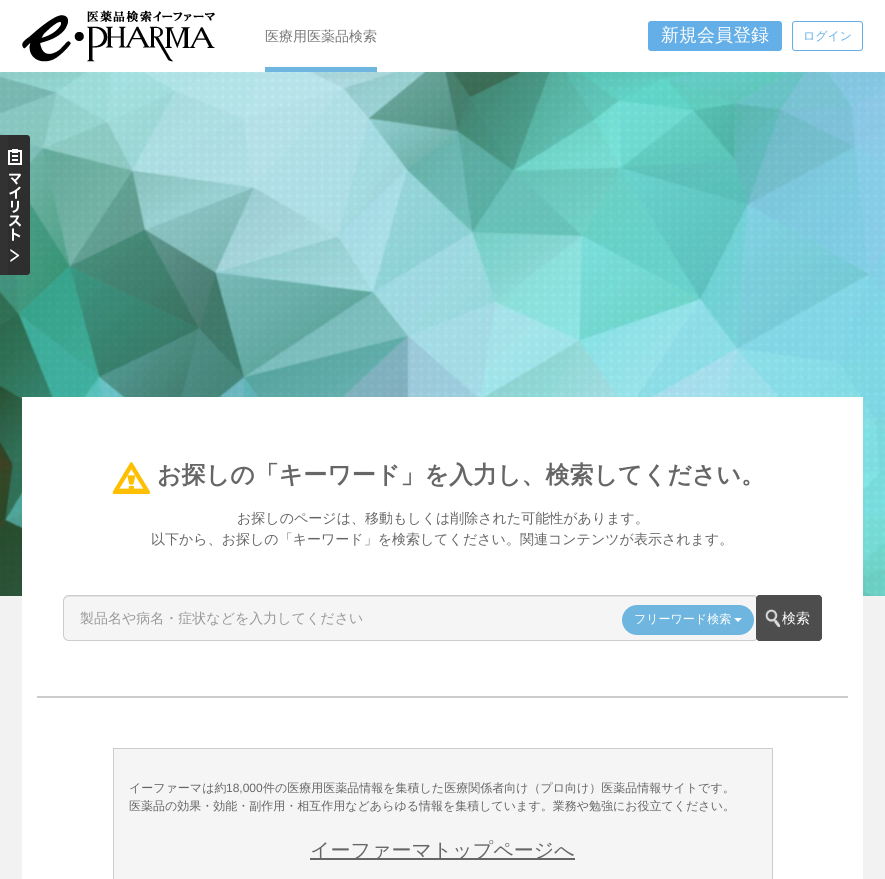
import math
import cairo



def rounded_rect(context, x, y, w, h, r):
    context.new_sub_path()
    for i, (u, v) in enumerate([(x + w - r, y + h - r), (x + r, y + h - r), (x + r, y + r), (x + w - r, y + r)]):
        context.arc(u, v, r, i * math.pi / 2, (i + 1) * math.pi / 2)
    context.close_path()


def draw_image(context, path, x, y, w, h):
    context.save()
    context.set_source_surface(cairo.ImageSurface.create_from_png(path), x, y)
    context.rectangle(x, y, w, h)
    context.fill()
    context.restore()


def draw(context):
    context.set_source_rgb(1, 1, 1)
    context.paint()
    draw_image(context, "images/3.png", 0, 72, 885, 524)
    context.set_source_rgb(50 / 255, 50 / 255, 50 / 255)
    context.new_path()
    context.move_to(0, 135)
    context.line_to(27, 135)
    context.curve_to(28.5, 135, 30, 136.5, 30, 138)
    context.line_to(30, 272)
    context.curve_to(30, 273.5, 28.5, 275, 27, 275)
    context.line_to(0, 275)
    context.close_path()
    context.fill()
    draw_image(context, "images/1.png", 8, 135, 22, 140)
    draw_image(context, "images/2.png", 22, 10, 193, 52)
    context.set_source_rgb(110 / 255, 182 / 255, 224 / 255)
    context.rectangle(265, 67, 112, 5)
    context.fill()
    context.set_source_rgb(100 / 255, 175 / 255, 231 / 255)
    rounded_rect(context, 648.5, 21.5, 133, 29, 2.5)
    context.fill_preserve()
    context.set_line_width(1)
    context.stroke()
    rounded_rect(context, 792.5, 21.5, 70, 29, 2.5)
    context.stroke()
    context.set_source_rgb(242 / 255, 242 / 255, 242 / 255)
    context.rectangle(0, 596, 885, 283)
    context.fill()
    context.set_source_rgb(1, 1, 1)
    context.rectangle(22, 397, 841, 482)
    context.fill()
    draw_image(context, "images/4.png", 112, 462, 39, 32)
    context.set_source_rgb(245 / 255, 245 / 255, 245 / 255)
    rounded_rect(context, 63, 595, 696, 46, 6)
    context.fill()
    context.set_source_rgb(227 / 255, 227 / 255, 227 / 255)
    context.new_path()
    context.move_to(69, 597)
    context.line_to(753, 597)
    context.curve_to(756, 597, 758, 599, 758, 602)
    context.line_to(758, 601)
    context.curve_to(758, 598, 756, 596, 753, 596)
    context.line_to(69, 596)
    context.curve_to(66, 596, 64, 598, 64, 601)
    context.line_to(64, 602)
    context.curve_to(64, 599, 66, 597, 69, 597)
    context.close_path()
    context.fill()
    rounded_rect(context, 63.5, 595.5, 695, 45, 5.5)
    context.set_source_rgb(204 / 255, 204 / 255, 204 / 255)
    context.stroke()
    context.set_source_rgb(110 / 255, 182 / 255, 224 / 255)
    rounded_rect(context, 622, 605, 132, 30, 15)
    context.fill()
    context.set_source_rgb(1, 1, 1)
    context.new_path()
    context.move_to(734, 618)
    context.line_to(742, 618)
    context.line_to(738, 622)
    context.close_path()
    context.fill()
    context.set_source_rgb(77 / 255, 77 / 255, 77 / 255)
    rounded_rect(context, 756, 595, 66, 46, 4)
    context.fill()
    draw_image(context, "images/5.png", 765, 609, 15, 18)
    rounded_rect(context, 756.5, 595.5, 65, 45, 3.5)
    context.stroke()
    context.set_source_rgb(204 / 255, 204 / 255, 204 / 255)
    context.rectangle(37, 696, 811, 2)
    context.fill()
    context.set_source_rgb(245 / 255, 245 / 255, 245 / 255)
    context.rectangle(113.5, 748.5, 659, 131)
    context.fill_preserve()
    context.set_source_rgb(204 / 255, 204 / 255, 204 / 255)
    context.stroke()
    context.set_source_rgb(102 / 255, 102 / 255, 102 / 255)
    context.rectangle(310, 858, 265, 2)
    context.fill()
    context.select_font_face("WenQuanYi Zen Hei Medium")
    context.set_font_size(14)
    context.set_source_rgb(119 / 255, 119 / 255, 119 / 255)
    context.move_to(265, 41)
    context.show_text("医療用医薬品検索")
    context.set_font_size(18)
    context.set_source_rgb(1, 1, 1)
    context.move_to(661, 41)
    context.show_text("新規会員登録")
    context.set_font_size(12)
    context.set_source_rgb(100 / 255, 175 / 255, 231 / 255)
    context.move_to(803, 40)
    context.show_text("ログイン")
    context.select_font_face("WenQuanYi Zen Hei", cairo.FontSlant.NORMAL, cairo.FontWeight.BOLD)
    context.set_font_size(24)
    context.set_source_rgb(102 / 255, 102 / 255, 102 / 255)
    context.move_to(157, 483)
    context.show_text("お探しの「キーワード」を入力し、検索してください。")
    context.select_font_face("WenQuanYi Zen Hei Medium")
    context.set_font_size(14)
    context.move_to(237, 523)
    context.show_text("お探しのページは、移動もしくは削除された可能性があります。")
    context.move_to(151, 544)
    context.show_text("以下から、お探しの「キーワード」を検索してください。関連コンテンツが表示されます。")
    context.set_source_rgb(153 / 255, 153 / 255, 153 / 255)
    context.move_to(80, 623)
    context.show_text("製品名や病名・症状などを入力してください")
    context.set_font_size(12)
    context.set_source_rgb(1, 1, 1)
    context.move_to(634, 623)
    context.show_text("フリーワード検索")
    context.set_font_size(14)
    context.move_to(782, 623)
    context.show_text("検索")
    context.set_font_size(12)
    context.set_source_rgb(102 / 255, 102 / 255, 102 / 255)
    context.move_to(129, 792)
    context.show_text("イーファーマは約")
    context.select_font_face("Liberation Sans")
    context.move_to(226, 792)
    context.show_text("18,000")
    context.select_font_face("WenQuanYi Zen Hei Medium")
    context.move_to(263, 792)
    context.show_text("件の医療用医薬品情報を集積した医療関係者向け（プロ向け）医薬品情報サイトです。")
    context.move_to(129, 810)
    context.show_text("医薬品の効果・効能・副作用・相互作用などあらゆる情報を集積しています。業務や勉強にお役立てください。")
    context.set_font_size(20)
    context.move_to(310, 857)
    context.show_text("イーファーマトップページへ")


surface = cairo.ImageSurface(cairo.Format.RGB24, 885, 879)
context = cairo.Context(surface)
options = cairo.FontOptions()
options.set_hint_metrics(cairo.HintMetrics.OFF)
options.set_hint_style(cairo.HintStyle.NONE)
context.set_font_options(options)
context.set_miter_limit(4)
draw(context)
surface.write_to_png("out.png")
